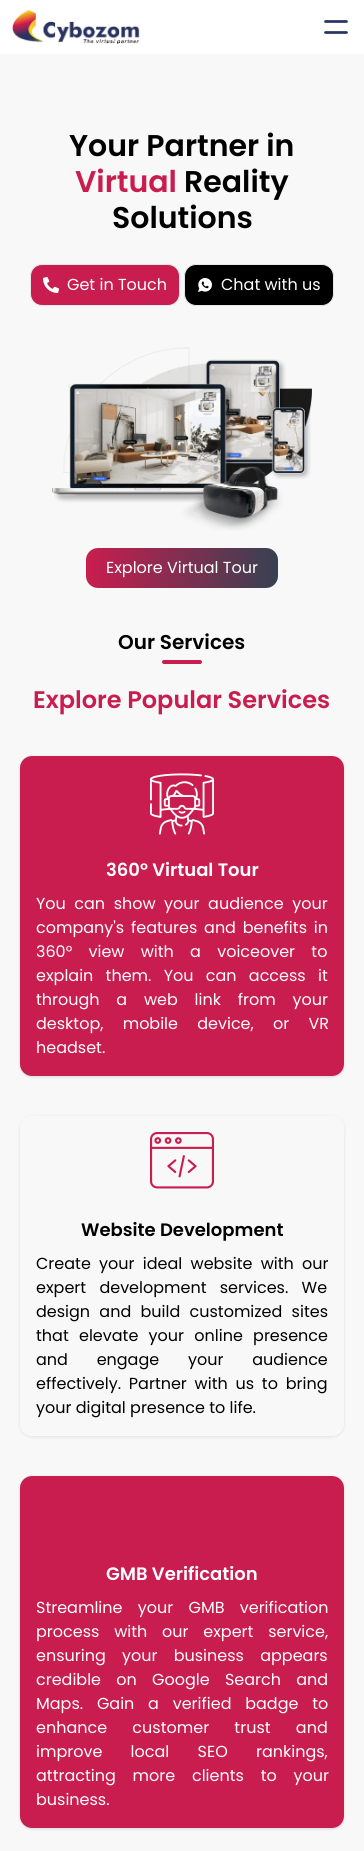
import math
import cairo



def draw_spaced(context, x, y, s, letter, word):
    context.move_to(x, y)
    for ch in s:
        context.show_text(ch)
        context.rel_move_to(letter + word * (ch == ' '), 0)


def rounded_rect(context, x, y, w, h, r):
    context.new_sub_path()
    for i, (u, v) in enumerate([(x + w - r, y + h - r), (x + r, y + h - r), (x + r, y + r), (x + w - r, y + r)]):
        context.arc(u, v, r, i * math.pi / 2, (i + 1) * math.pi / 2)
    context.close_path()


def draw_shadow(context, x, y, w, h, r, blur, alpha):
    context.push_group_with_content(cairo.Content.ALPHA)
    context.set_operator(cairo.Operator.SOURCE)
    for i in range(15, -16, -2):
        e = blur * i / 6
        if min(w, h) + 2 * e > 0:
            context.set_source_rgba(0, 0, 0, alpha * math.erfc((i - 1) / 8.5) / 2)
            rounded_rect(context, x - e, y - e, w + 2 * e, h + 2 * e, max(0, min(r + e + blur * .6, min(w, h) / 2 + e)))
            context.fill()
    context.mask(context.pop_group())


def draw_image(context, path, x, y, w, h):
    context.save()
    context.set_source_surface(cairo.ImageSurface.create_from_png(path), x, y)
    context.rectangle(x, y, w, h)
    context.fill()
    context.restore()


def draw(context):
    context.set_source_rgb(248 / 255, 248 / 255, 248 / 255)
    context.paint()
    context.set_source_rgb(1, 1, 1)
    context.rectangle(0, 0, 364, 54)
    context.fill()
    draw_image(context, "images/1.png", 12, 9, 128, 35)
    context.new_path()
    context.move_to(325.5, 21.5)
    context.line_to(346.5, 21.5)
    context.move_to(325.5, 32.5)
    context.line_to(346.5, 32.5)
    context.set_source_rgb(41 / 255, 52 / 255, 97 / 255)
    context.set_line_width(2.7)
    context.set_line_cap(cairo.LineCap.ROUND)
    context.set_line_join(cairo.LineJoin.ROUND)
    context.stroke()
    context.set_source_rgb(201 / 255, 29 / 255, 79 / 255)
    rounded_rect(context, 30.5, 264.5, 149, 41, 11.5)
    context.fill_preserve()
    context.set_source_rgb(229 / 255, 231 / 255, 235 / 255)
    context.set_line_width(1)
    context.set_line_cap(cairo.LineCap.BUTT)
    context.set_line_join(cairo.LineJoin.MITER)
    context.stroke()
    draw_image(context, "images/2.png", 43, 277, 16, 16)
    context.set_source_rgb(0, 0, 0)
    rounded_rect(context, 184.5, 264.5, 149, 41, 11.5)
    context.fill_preserve()
    context.set_source_rgb(229 / 255, 231 / 255, 235 / 255)
    context.stroke()
    draw_image(context, "images/3.png", 198, 278, 14, 14)
    draw_image(context, "images/4.png", 52, 347, 260, 184)
    gradient = cairo.LinearGradient(86, 568, 278, 568)
    gradient.add_color_stop_rgba(0, 201 / 255, 29 / 255, 79 / 255, 1)
    gradient.add_color_stop_rgba(1, 55 / 255, 65 / 255, 81 / 255, 1)
    context.set_source(gradient)
    rounded_rect(context, 86, 548, 192, 40, 12)
    context.fill()
    context.set_source_rgb(201 / 255, 29 / 255, 79 / 255)
    rounded_rect(context, 162, 660, 40, 4, 2)
    context.fill()
    context.set_source_rgb(0, 0, 0)
    draw_shadow(context, 21, 758, 322, 318, 11, 1, 0.1)
    draw_shadow(context, 20, 757, 324, 320, 12, 1.5, 0.1)
    context.set_source_rgb(201 / 255, 29 / 255, 79 / 255)
    rounded_rect(context, 20, 756, 324, 320, 12)
    context.fill()
    draw_image(context, "images/5.png", 150, 773, 64, 62)
    context.save()
    context.set_fill_rule(cairo.FillRule.EVEN_ODD)
    context.new_path()
    context.move_to(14, 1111)
    context.line_to(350, 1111)
    context.line_to(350, 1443)
    context.line_to(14, 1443)
    context.close_path()
    context.move_to(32, 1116)
    context.line_to(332, 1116)
    context.curve_to(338.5, 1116, 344, 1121.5, 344, 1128)
    context.line_to(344, 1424)
    context.curve_to(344, 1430.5, 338.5, 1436, 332, 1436)
    context.line_to(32, 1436)
    context.curve_to(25.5, 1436, 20, 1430.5, 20, 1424)
    context.line_to(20, 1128)
    context.curve_to(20, 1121.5, 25.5, 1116, 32, 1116)
    context.close_path()
    context.clip()
    context.set_source_rgb(0, 0, 0)
    draw_shadow(context, 20, 1117, 324, 320, 12, 1.5, 0.1)
    context.restore()
    draw_image(context, "images/6.png", 150, 1132, 64, 57)
    context.set_source_rgb(0, 0, 0)
    draw_shadow(context, 21, 1478, 322, 350, 11, 1, 0.1)
    draw_shadow(context, 20, 1477, 324, 352, 12, 1.5, 0.1)
    context.set_source_rgb(201 / 255, 29 / 255, 79 / 255)
    rounded_rect(context, 20, 1476, 324, 352, 12)
    context.fill()
    context.select_font_face("Poppins SemiBold")
    context.set_font_size(30)
    context.set_source_rgb(0, 0, 0)
    context.move_to(69, 156)
    context.show_text("Your Partner in")
    context.set_source_rgb(201 / 255, 29 / 255, 79 / 255)
    context.move_to(75, 192)
    context.show_text("Virtual")
    context.set_source_rgb(0, 0, 0)
    context.move_to(184, 192)
    context.show_text("Reality")
    context.move_to(112, 228)
    context.show_text("Solutions")
    context.select_font_face("Poppins")
    context.set_font_size(16)
    context.set_source_rgb(1, 1, 1)
    context.move_to(67, 290)
    context.show_text("Get in Touch")
    context.move_to(221, 290)
    context.show_text("Chat with us")
    context.move_to(106, 573)
    context.show_text("Explore Virtual Tour")
    context.select_font_face("Poppins SemiBold")
    context.set_font_size(20)
    context.set_source_rgb(0, 0, 0)
    context.move_to(118, 649)
    context.show_text("Our Services")
    context.set_font_size(24)
    context.set_source_rgb(201 / 255, 29 / 255, 79 / 255)
    context.move_to(33, 708)
    context.show_text("Explore Popular Services")
    context.set_font_size(18)
    context.set_source_rgb(1, 1, 1)
    context.move_to(106, 876)
    context.show_text("360° Virtual Tour")
    context.select_font_face("Poppins")
    context.set_font_size(16)
    draw_spaced(context, 36, 909, "You can show your audience your", 0, 4.25)
    draw_spaced(context, 36, 933, "company's features and benefits in", 0, 2.5)
    draw_spaced(context, 36, 957, "360° view with a voiceover to", 0, 12)
    draw_spaced(context, 36, 981, "explain them. You can access it", 0, 8)
    draw_spaced(context, 36, 1005, "through a web link from your", 0, 12.5)
    draw_spaced(context, 36, 1029, "desktop, mobile device, or VR", 0, 15)
    context.move_to(36, 1053)
    context.show_text("headset.")
    context.select_font_face("Poppins SemiBold")
    context.set_font_size(18)
    context.set_source_rgb(0, 0, 0)
    context.move_to(81, 1236)
    context.show_text("Website Development")
    context.select_font_face("Poppins")
    context.set_font_size(16)
    draw_spaced(context, 36, 1269, "Create your ideal website with our", 0, 4)
    draw_spaced(context, 36, 1293, "expert development services. We", 0, 9)
    draw_spaced(context, 36, 1317, "design and build customized sites", 0, 5)
    draw_spaced(context, 36, 1341, "that elevate your online presence", 0, 6)
    draw_spaced(context, 36, 1365, "and engage your audience", 0, 24.5)
    draw_spaced(context, 36, 1389, "effectively. Partner with us to bring", 0, 3.5)
    context.move_to(36, 1413)
    context.show_text("your digital presence to life.")
    context.select_font_face("Poppins SemiBold")
    context.set_font_size(18)
    context.set_source_rgb(1, 1, 1)
    context.move_to(106, 1580)
    context.show_text("GMB Verification")
    context.select_font_face("Poppins")
    context.set_font_size(16)
    draw_spaced(context, 36, 1613, "Streamline your GMB verification", 0, 11)
    draw_spaced(context, 36, 1637, "process with our expert service,", 0, 10.5)
    draw_spaced(context, 36, 1661, "ensuring your business appears", 0, 12)
    draw_spaced(context, 36, 1685, "credible on Google Search and", 0, 11)
    draw_spaced(context, 36, 1709, "Maps. Gain a verified badge to", 0, 9.5)
    draw_spaced(context, 36, 1733, "enhance customer trust and", 0, 21)
    draw_spaced(context, 36, 1757, "improve local SEO rankings,", 0, 24)
    draw_spaced(context, 36, 1781, "attracting more clients to your", 0, 12.5)
    context.move_to(36, 1805)
    context.show_text("business.")


surface = cairo.ImageSurface(cairo.Format.RGB24, 364, 1851)
context = cairo.Context(surface)
options = cairo.FontOptions()
options.set_hint_metrics(cairo.HintMetrics.OFF)
options.set_hint_style(cairo.HintStyle.NONE)
context.set_font_options(options)
context.set_miter_limit(4)
draw(context)
surface.write_to_png("out.png")
